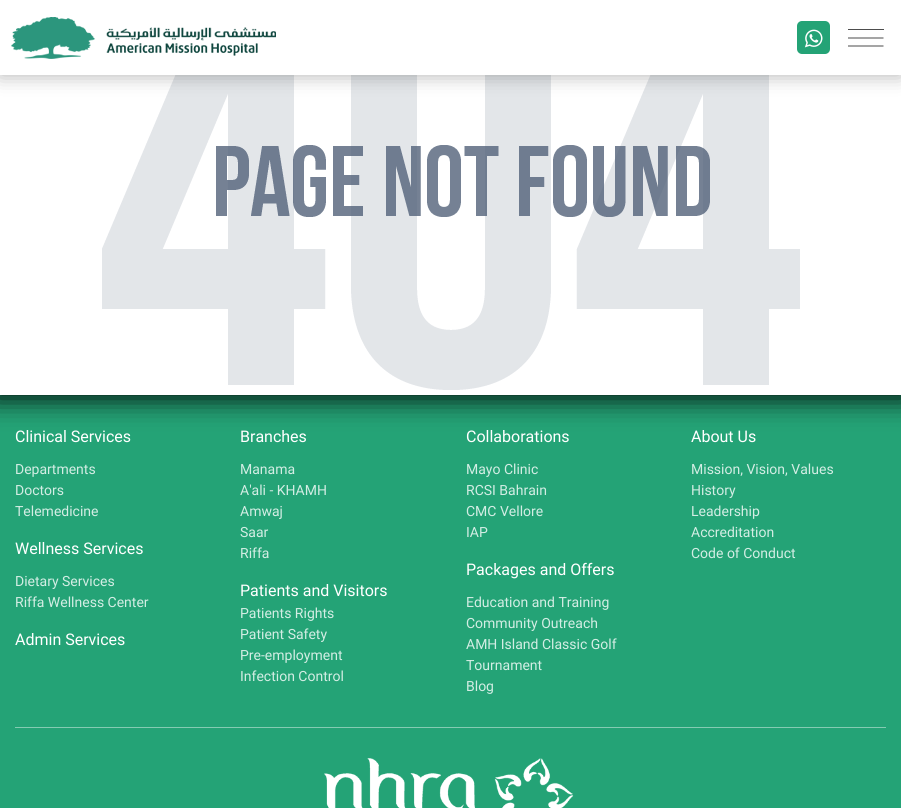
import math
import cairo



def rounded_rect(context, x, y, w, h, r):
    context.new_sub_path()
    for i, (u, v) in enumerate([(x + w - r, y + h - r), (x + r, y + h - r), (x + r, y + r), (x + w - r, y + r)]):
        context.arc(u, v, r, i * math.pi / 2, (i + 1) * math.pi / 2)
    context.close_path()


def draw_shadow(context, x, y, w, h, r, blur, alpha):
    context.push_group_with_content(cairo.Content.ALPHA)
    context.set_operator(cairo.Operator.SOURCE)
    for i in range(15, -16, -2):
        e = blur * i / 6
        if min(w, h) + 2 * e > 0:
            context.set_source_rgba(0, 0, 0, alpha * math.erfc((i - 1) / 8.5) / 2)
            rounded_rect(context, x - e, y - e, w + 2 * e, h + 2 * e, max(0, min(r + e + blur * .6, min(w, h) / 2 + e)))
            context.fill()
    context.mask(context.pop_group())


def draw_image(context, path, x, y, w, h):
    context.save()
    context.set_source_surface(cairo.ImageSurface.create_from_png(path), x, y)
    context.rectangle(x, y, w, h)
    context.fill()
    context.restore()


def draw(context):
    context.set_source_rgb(1, 1, 1)
    context.paint()
    draw_image(context, "images/3.png", 102, 75, 698, 315)
    context.set_source_rgb(0, 0, 0)
    draw_shadow(context, 0, 0, 901, 75, 0, 10, 0.31)
    context.set_source_rgb(1, 1, 1)
    context.rectangle(0, 0, 901, 75)
    context.fill()
    draw_image(context, "images/1.png", 11, 17, 265, 42)
    context.set_source_rgb(36 / 255, 163 / 255, 118 / 255)
    rounded_rect(context, 797, 21, 33, 33, 5)
    context.fill()
    draw_image(context, "images/2.png", 804, 29, 19, 19)
    context.set_source_rgb(77 / 255, 77 / 255, 77 / 255)
    context.rectangle(848, 29, 36, 1)
    context.fill()
    context.new_path()
    context.move_to(848, 38)
    context.line_to(883.5, 38)
    context.move_to(848, 46)
    context.line_to(883.5, 46)
    context.set_source_rgb(0, 0, 0)
    context.set_line_width(0.7)
    context.stroke()
    context.set_source_rgb(36 / 255, 163 / 255, 118 / 255)
    context.rectangle(0, 395, 901, 413)
    context.fill()
    context.save()
    context.rectangle(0, 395, 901, 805)
    context.clip()
    context.set_source_rgb(0, 0, 0)
    draw_shadow(context, -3, 386, 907, 12, 6, 13.5, 1)
    context.restore()
    context.set_source_rgb(132 / 255, 203 / 255, 178 / 255)
    context.rectangle(15, 727, 871, 1)
    context.fill()
    draw_image(context, "images/4.png", 324, 758, 250, 50)
    context.select_font_face("Roboto")
    context.set_font_size(16)
    context.set_source_rgb(1, 1, 1)
    context.move_to(15, 442)
    context.show_text("Clinical Services")
    context.set_font_size(14)
    context.set_source_rgb(211 / 255, 237 / 255, 228 / 255)
    context.move_to(15, 474)
    context.show_text("Departments")
    context.move_to(15, 495)
    context.show_text("Doctors")
    context.move_to(15, 516)
    context.show_text("Telemedicine")
    context.set_font_size(16)
    context.set_source_rgb(1, 1, 1)
    context.move_to(15, 554)
    context.show_text("Wellness Services")
    context.set_font_size(14)
    context.set_source_rgb(211 / 255, 237 / 255, 228 / 255)
    context.move_to(15, 586)
    context.show_text("Dietary Services")
    context.move_to(15, 607)
    context.show_text("Riffa Wellness Center")
    context.set_font_size(16)
    context.set_source_rgb(1, 1, 1)
    context.move_to(15, 645)
    context.show_text("Admin Services")
    context.move_to(240, 442)
    context.show_text("Branches")
    context.set_font_size(14)
    context.set_source_rgb(211 / 255, 237 / 255, 228 / 255)
    context.move_to(240, 474)
    context.show_text("Manama")
    context.move_to(240, 495)
    context.show_text("A'ali - KHAMH")
    context.move_to(240, 516)
    context.show_text("Amwaj")
    context.move_to(240, 537)
    context.show_text("Saar")
    context.move_to(240, 558)
    context.show_text("Riffa")
    context.set_font_size(16)
    context.set_source_rgb(1, 1, 1)
    context.move_to(240, 596)
    context.show_text("Patients and Visitors")
    context.set_font_size(14)
    context.set_source_rgb(211 / 255, 237 / 255, 228 / 255)
    context.move_to(240, 618)
    context.show_text("Patients Rights")
    context.move_to(240, 639)
    context.show_text("Patient Safety")
    context.move_to(240, 660)
    context.show_text("Pre-employment")
    context.move_to(240, 681)
    context.show_text("Infection Control")
    context.set_font_size(16)
    context.set_source_rgb(1, 1, 1)
    context.move_to(466, 442)
    context.show_text("Collaborations")
    context.set_font_size(14)
    context.set_source_rgb(211 / 255, 237 / 255, 228 / 255)
    context.move_to(466, 474)
    context.show_text("Mayo Clinic")
    context.move_to(466, 495)
    context.show_text("RCSI Bahrain")
    context.move_to(466, 516)
    context.show_text("CMC Vellore")
    context.move_to(466, 537)
    context.show_text("IAP")
    context.set_font_size(16)
    context.set_source_rgb(1, 1, 1)
    context.move_to(466, 575)
    context.show_text("Packages and Offers")
    context.set_font_size(14)
    context.set_source_rgb(211 / 255, 237 / 255, 228 / 255)
    context.move_to(466, 607)
    context.show_text("Education and Training")
    context.move_to(466, 628)
    context.show_text("Community Outreach")
    context.move_to(466, 649)
    context.show_text("AMH Island Classic Golf")
    context.move_to(466, 670)
    context.show_text("Tournament")
    context.move_to(466, 691)
    context.show_text("Blog")
    context.set_font_size(16)
    context.set_source_rgb(1, 1, 1)
    context.move_to(691, 442)
    context.show_text("About Us")
    context.set_font_size(14)
    context.set_source_rgb(211 / 255, 237 / 255, 228 / 255)
    context.move_to(691, 474)
    context.show_text("Mission, Vision, Values")
    context.move_to(691, 495)
    context.show_text("History")
    context.move_to(691, 516)
    context.show_text("Leadership")
    context.move_to(691, 537)
    context.show_text("Accreditation")
    context.move_to(691, 558)
    context.show_text("Code of Conduct")


surface = cairo.ImageSurface(cairo.Format.RGB24, 901, 808)
context = cairo.Context(surface)
options = cairo.FontOptions()
options.set_hint_metrics(cairo.HintMetrics.OFF)
options.set_hint_style(cairo.HintStyle.NONE)
context.set_font_options(options)
context.set_miter_limit(4)
draw(context)
surface.write_to_png("out.png")
